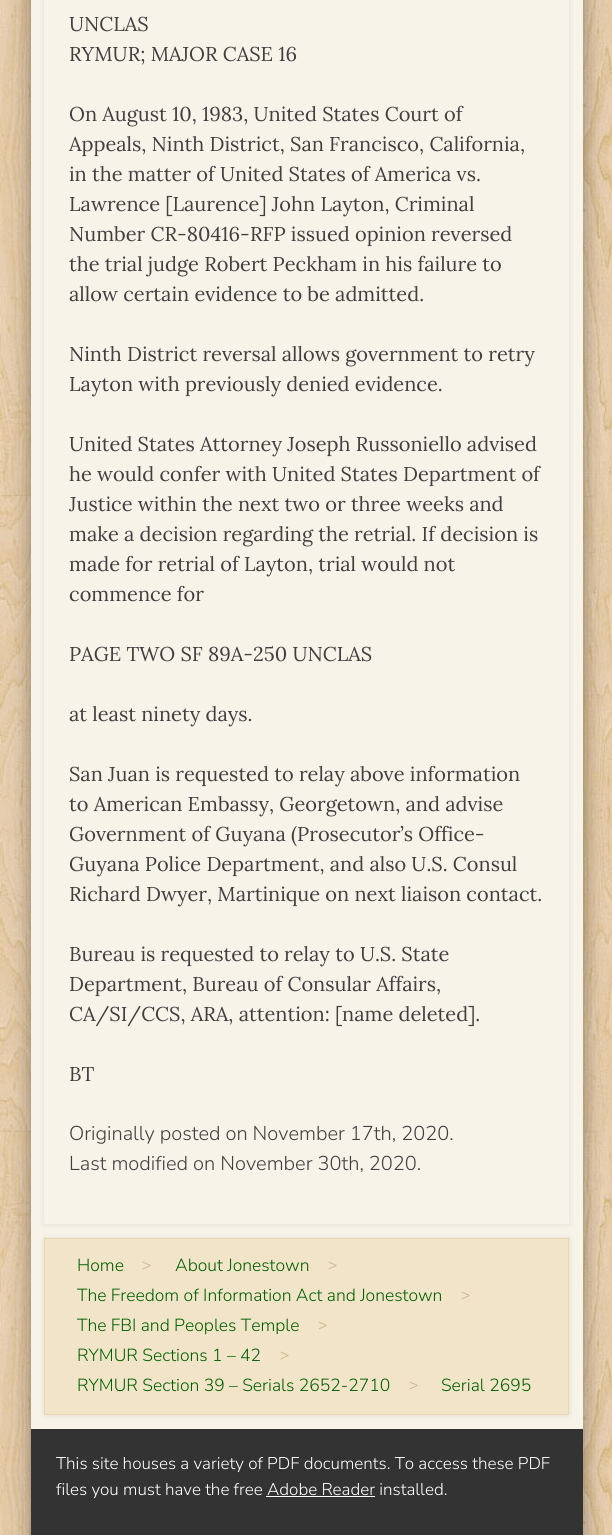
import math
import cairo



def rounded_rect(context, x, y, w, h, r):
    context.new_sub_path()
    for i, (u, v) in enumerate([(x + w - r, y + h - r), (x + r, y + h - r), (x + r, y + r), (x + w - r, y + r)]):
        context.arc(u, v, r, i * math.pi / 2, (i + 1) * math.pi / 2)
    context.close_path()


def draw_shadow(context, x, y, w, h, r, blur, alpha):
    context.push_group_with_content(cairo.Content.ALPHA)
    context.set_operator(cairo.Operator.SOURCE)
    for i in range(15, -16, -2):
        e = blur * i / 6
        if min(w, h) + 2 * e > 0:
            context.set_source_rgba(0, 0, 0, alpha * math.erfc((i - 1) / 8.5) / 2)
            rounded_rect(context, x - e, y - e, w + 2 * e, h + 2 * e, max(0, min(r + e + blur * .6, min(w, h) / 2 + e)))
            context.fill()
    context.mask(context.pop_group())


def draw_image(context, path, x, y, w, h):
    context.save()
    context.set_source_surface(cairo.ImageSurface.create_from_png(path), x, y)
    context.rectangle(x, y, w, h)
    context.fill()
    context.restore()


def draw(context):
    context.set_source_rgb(1, 1, 1)
    context.paint()
    draw_image(context, "images/1.png", 0, 0, 612, 1535)
    context.set_source_rgb(0, 0, 0)
    draw_shadow(context, 31, -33, 552, 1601, 0, 11, 0.4)
    context.set_source_rgb(248 / 255, 243 / 255, 233 / 255)
    context.rectangle(31, 0, 552, 1429)
    context.fill()
    context.save()
    context.set_fill_rule(cairo.FillRule.EVEN_ODD)
    context.new_path()
    context.move_to(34, 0)
    context.line_to(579, 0)
    context.line_to(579, 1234)
    context.line_to(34, 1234)
    context.close_path()
    context.move_to(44, -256)
    context.line_to(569, -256)
    context.line_to(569, 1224)
    context.line_to(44, 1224)
    context.close_path()
    context.clip()
    context.set_source_rgb(0, 0, 0)
    draw_shadow(context, 44, -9, 525, 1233, 0, 3, 0.1)
    context.restore()
    context.set_source_rgb(0, 0, 0)
    draw_shadow(context, 44, 1238, 525, 177, 0, 3, 0.1)
    context.set_source_rgb(242 / 255, 228 / 255, 201 / 255)
    context.rectangle(44.5, 1238.5, 524, 176)
    context.fill_preserve()
    context.set_source_rgb(235 / 255, 214 / 255, 173 / 255)
    context.set_line_width(1)
    context.stroke()
    context.set_source_rgb(51 / 255, 51 / 255, 51 / 255)
    context.rectangle(31, 1429, 552, 106)
    context.fill()
    context.set_source_rgb(1, 1, 1)
    context.rectangle(266, 1496, 109, 1)
    context.fill()
    context.select_font_face("Lora")
    context.set_font_size(20)
    context.set_source_rgb(64 / 255, 64 / 255, 64 / 255)
    context.move_to(69, 31)
    context.show_text("UNCLAS")
    context.move_to(69, 61)
    context.show_text("RYMUR; MAJOR CASE 16")
    context.move_to(69, 121)
    context.show_text("On August 10, 1983, United States Court of")
    context.move_to(69, 151)
    context.show_text("Appeals, Ninth District, San Francisco, California,")
    context.move_to(69, 181)
    context.show_text("in the matter of United States of America vs.")
    context.move_to(69, 211)
    context.show_text("Lawrence [Laurence] John Layton, Criminal")
    context.move_to(69, 241)
    context.show_text("Number CR-80416-RFP issued opinion reversed")
    context.move_to(69, 271)
    context.show_text("the trial judge Robert Peckham in his failure to")
    context.move_to(69, 301)
    context.show_text("allow certain evidence to be admitted.")
    context.move_to(69, 361)
    context.show_text("Ninth District reversal allows government to retry")
    context.move_to(69, 391)
    context.show_text("Layton with previously denied evidence.")
    context.move_to(69, 451)
    context.show_text("United States Attorney Joseph Russoniello advised")
    context.move_to(69, 481)
    context.show_text("he would confer with United States Department of")
    context.move_to(69, 511)
    context.show_text("Justice within the next two or three weeks and")
    context.move_to(69, 541)
    context.show_text("make a decision regarding the retrial. If decision is")
    context.move_to(69, 571)
    context.show_text("made for retrial of Layton, trial would not")
    context.move_to(69, 601)
    context.show_text("commence for")
    context.move_to(69, 661)
    context.show_text("PAGE TWO SF 89A-250 UNCLAS")
    context.move_to(69, 721)
    context.show_text("at least ninety days.")
    context.move_to(69, 781)
    context.show_text("San Juan is requested to relay above information")
    context.move_to(69, 811)
    context.show_text("to American Embassy, Georgetown, and advise")
    context.move_to(69, 841)
    context.show_text("Government of Guyana (Prosecutor’s Office-")
    context.move_to(69, 871)
    context.show_text("Guyana Police Department, and also U.S. Consul")
    context.move_to(69, 901)
    context.show_text("Richard Dwyer, Martinique on next liaison contact.")
    context.move_to(69, 961)
    context.show_text("Bureau is requested to relay to U.S. State")
    context.move_to(69, 991)
    context.show_text("Department, Bureau of Consular Affairs,")
    context.move_to(69, 1021)
    context.show_text("CA/SI/CCS, ARA, attention: [name deleted].")
    context.move_to(69, 1081)
    context.show_text("BT")
    context.select_font_face("Nunito Sans Light")
    context.move_to(69, 1140)
    context.show_text("Originally posted on November 17th, 2020.")
    context.move_to(69, 1170)
    context.show_text("Last modified on November 30th, 2020.")
    context.set_font_size(17.5)
    context.set_source_rgb(0, 96 / 255, 0)
    context.move_to(77, 1271)
    context.show_text("Home")
    context.select_font_face("Lora")
    context.set_source_rgb(208 / 255, 186 / 255, 145 / 255)
    context.move_to(142, 1271)
    context.show_text(">")
    context.select_font_face("Nunito Sans Light")
    context.set_source_rgb(0, 96 / 255, 0)
    context.move_to(175, 1271)
    context.show_text("About Jonestown")
    context.select_font_face("Lora")
    context.set_source_rgb(208 / 255, 186 / 255, 145 / 255)
    context.move_to(328, 1271)
    context.show_text(">")
    context.select_font_face("Nunito Sans Light")
    context.set_source_rgb(0, 96 / 255, 0)
    context.move_to(77, 1301)
    context.show_text("The Freedom of Information Act and Jonestown")
    context.select_font_face("Lora")
    context.set_source_rgb(208 / 255, 186 / 255, 145 / 255)
    context.move_to(461, 1301)
    context.show_text(">")
    context.select_font_face("Nunito Sans Light")
    context.set_source_rgb(0, 96 / 255, 0)
    context.move_to(77, 1331)
    context.show_text("The FBI and Peoples Temple")
    context.select_font_face("Lora")
    context.set_source_rgb(208 / 255, 186 / 255, 145 / 255)
    context.move_to(318, 1331)
    context.show_text(">")
    context.select_font_face("Nunito Sans Light")
    context.set_source_rgb(0, 96 / 255, 0)
    context.move_to(77, 1361)
    context.show_text("RYMUR Sections 1 – 42")
    context.select_font_face("Lora")
    context.set_source_rgb(208 / 255, 186 / 255, 145 / 255)
    context.move_to(280, 1361)
    context.show_text(">")
    context.select_font_face("Nunito Sans Light")
    context.set_source_rgb(0, 96 / 255, 0)
    context.move_to(77, 1391)
    context.show_text("RYMUR Section 39 – Serials 2652-2710")
    context.select_font_face("Lora")
    context.set_source_rgb(208 / 255, 186 / 255, 145 / 255)
    context.move_to(409, 1391)
    context.show_text(">")
    context.select_font_face("Nunito Sans Light")
    context.set_source_rgb(0, 96 / 255, 0)
    context.move_to(441, 1391)
    context.show_text("Serial 2695")
    context.set_font_size(17)
    context.set_source_rgb(1, 1, 1)
    context.move_to(56, 1469)
    context.show_text("This site houses a variety of PDF documents. To access these PDF")
    context.move_to(56, 1495)
    context.show_text("files you must have the free Adobe Reader installed.")


surface = cairo.ImageSurface(cairo.Format.RGB24, 612, 1535)
context = cairo.Context(surface)
options = cairo.FontOptions()
options.set_hint_metrics(cairo.HintMetrics.OFF)
options.set_hint_style(cairo.HintStyle.NONE)
context.set_font_options(options)
context.set_miter_limit(4)
draw(context)
surface.write_to_png("out.png")
